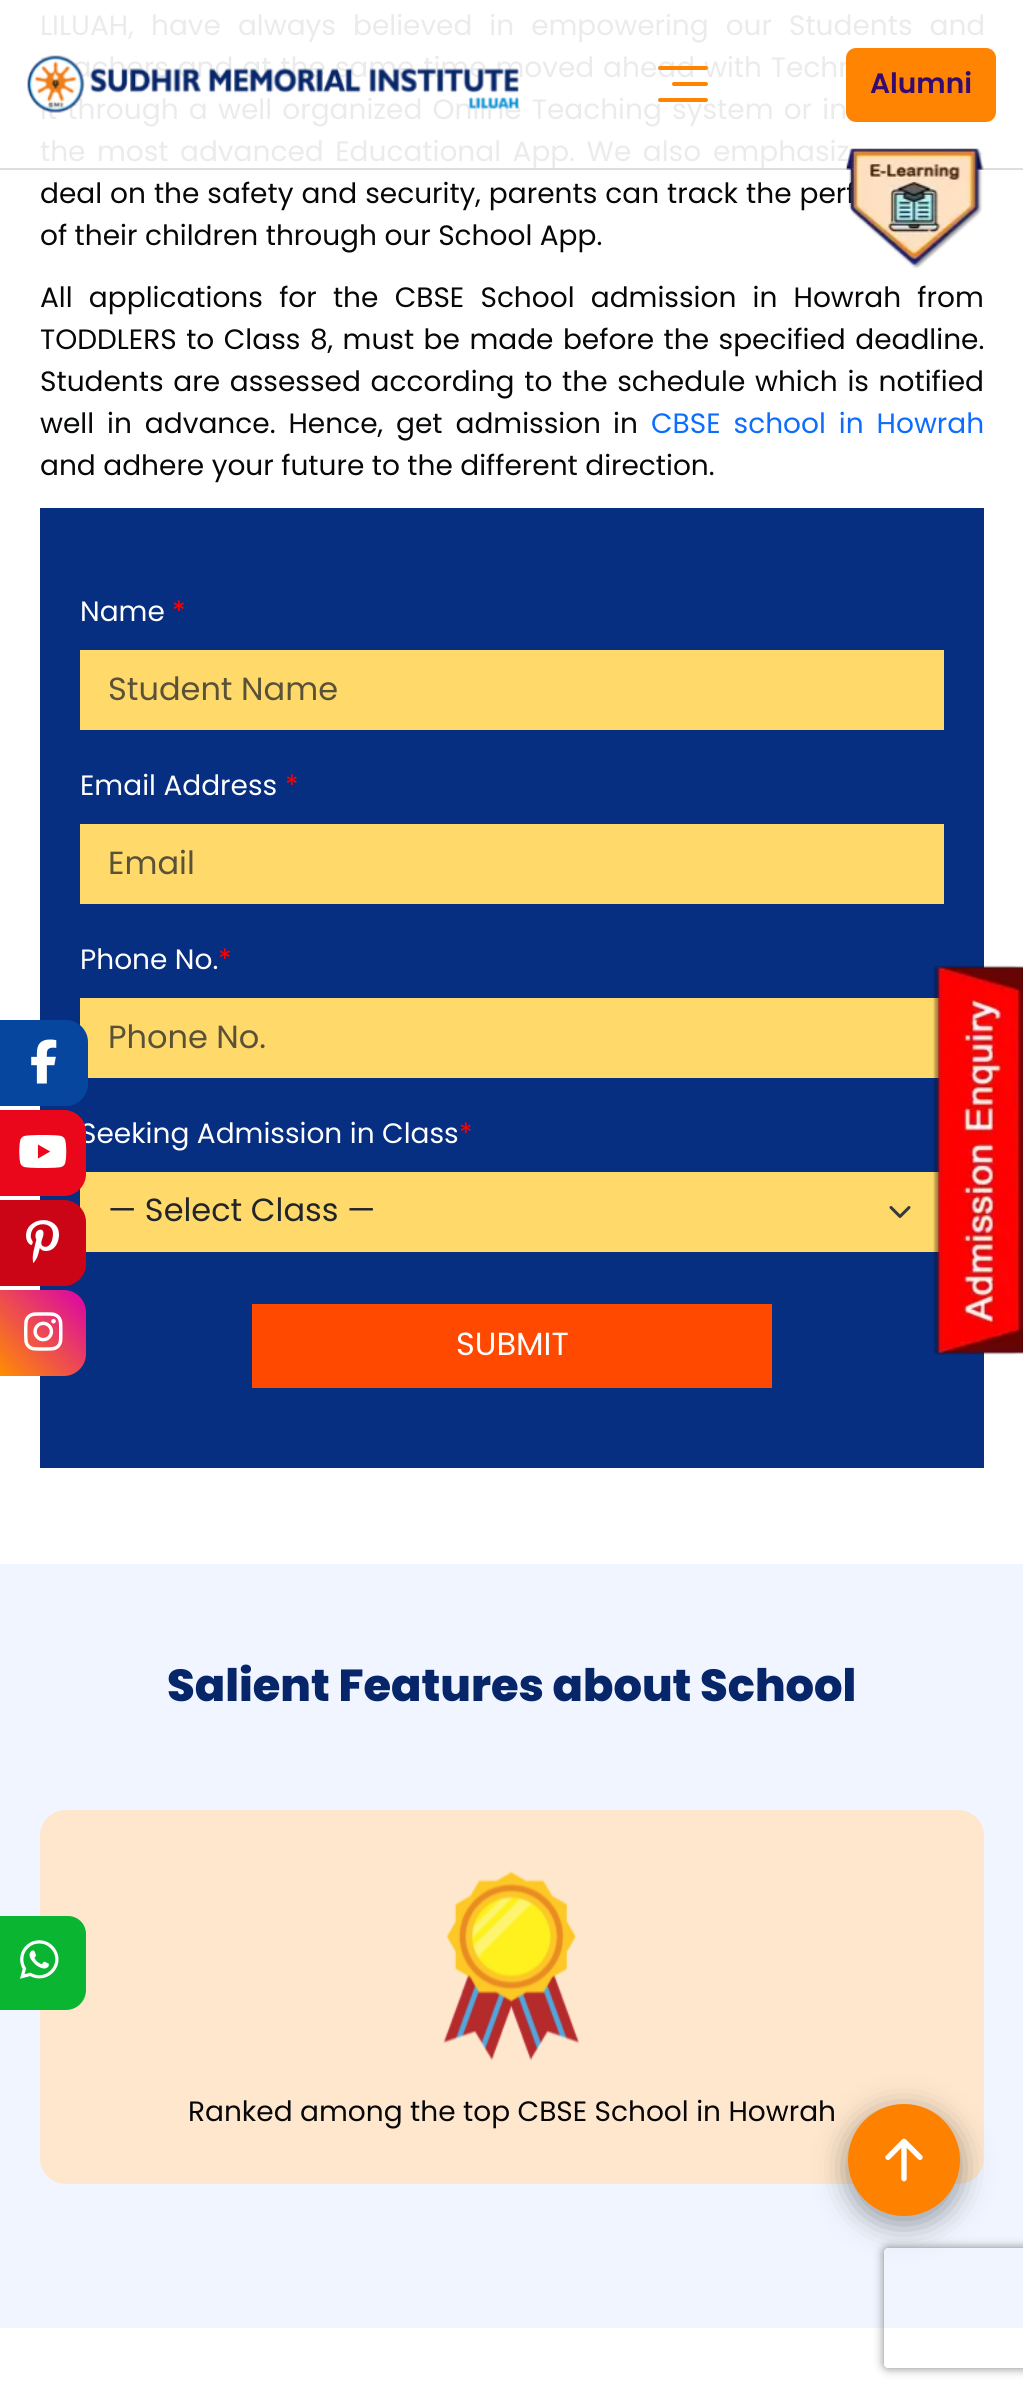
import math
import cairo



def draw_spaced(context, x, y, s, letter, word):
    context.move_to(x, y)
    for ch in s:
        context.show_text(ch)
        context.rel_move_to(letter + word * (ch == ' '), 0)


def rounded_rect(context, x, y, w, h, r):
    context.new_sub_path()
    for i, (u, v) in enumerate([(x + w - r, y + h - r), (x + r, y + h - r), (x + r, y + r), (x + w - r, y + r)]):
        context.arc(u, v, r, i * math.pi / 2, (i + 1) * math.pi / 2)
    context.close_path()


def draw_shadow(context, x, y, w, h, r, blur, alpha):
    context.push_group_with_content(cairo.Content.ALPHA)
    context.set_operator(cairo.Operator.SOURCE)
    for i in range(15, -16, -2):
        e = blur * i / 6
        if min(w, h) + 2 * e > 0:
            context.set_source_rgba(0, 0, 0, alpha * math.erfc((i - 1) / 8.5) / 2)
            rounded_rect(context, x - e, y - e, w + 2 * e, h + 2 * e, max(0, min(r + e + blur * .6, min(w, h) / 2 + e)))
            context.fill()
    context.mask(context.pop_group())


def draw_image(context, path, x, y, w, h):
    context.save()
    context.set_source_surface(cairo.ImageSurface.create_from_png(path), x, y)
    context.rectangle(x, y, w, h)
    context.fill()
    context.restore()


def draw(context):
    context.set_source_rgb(1, 1, 1)
    context.paint()
    context.set_source_rgb(6 / 255, 46 / 255, 129 / 255)
    context.rectangle(40, 508, 944, 960)
    context.fill()
    context.set_source_rgb(1, 217 / 255, 106 / 255)
    context.rectangle(80, 650, 864, 80)
    context.fill()
    context.rectangle(80, 824, 864, 80)
    context.fill()
    context.rectangle(80, 998, 860, 80)
    context.fill()
    context.rectangle(80, 1172, 860, 80)
    context.fill()
    context.new_path()
    context.move_to(891, 1207.5)
    context.line_to(900, 1216.5)
    context.line_to(909, 1207.5)
    context.set_source_rgb(52 / 255, 58 / 255, 64 / 255)
    context.set_line_width(3)
    context.set_line_cap(cairo.LineCap.ROUND)
    context.set_line_join(cairo.LineJoin.ROUND)
    context.stroke()
    context.set_source_rgb(1, 73 / 255, 1 / 255)
    context.rectangle(252, 1304, 520, 84)
    context.fill()
    context.set_source_rgb(1, 132 / 255, 1 / 255)
    rounded_rect(context, 672, 82, 36, 4, 2)
    context.fill()
    context.set_source_rgb(7 / 255, 70 / 255, 158 / 255)
    context.new_path()
    context.move_to(0, 1020)
    context.line_to(66, 1020)
    context.curve_to(78, 1020, 88, 1030, 88, 1042)
    context.line_to(88, 1084)
    context.curve_to(88, 1096, 78, 1106, 66, 1106)
    context.line_to(0, 1106)
    context.close_path()
    context.fill()
    draw_image(context, "images/3.png", 31, 1039, 26, 45)
    context.set_source_rgb(203 / 255, 4 / 255, 22 / 255)
    context.new_path()
    context.move_to(0, 1200)
    context.line_to(64, 1200)
    context.curve_to(76, 1200, 86, 1210, 86, 1222)
    context.line_to(86, 1264)
    context.curve_to(86, 1276, 76, 1286, 64, 1286)
    context.line_to(0, 1286)
    context.close_path()
    context.fill()
    draw_image(context, "images/5.png", 26, 1220, 33, 43)
    gradient = cairo.LinearGradient(0, 1376, 86, 1290)
    gradient.add_color_stop_rgba(0, 1, 141 / 255, 0, 1)
    gradient.add_color_stop_rgba(1, 217 / 255, 2 / 255, 170 / 255, 1)
    context.set_source(gradient)
    context.new_path()
    context.move_to(0, 1290)
    context.line_to(64, 1290)
    context.curve_to(76, 1290, 86, 1300, 86, 1312)
    context.line_to(86, 1354)
    context.curve_to(86, 1366, 76, 1376, 64, 1376)
    context.line_to(0, 1376)
    context.close_path()
    context.fill()
    draw_image(context, "images/6.png", 24, 1312, 39, 39)
    draw_image(context, "images/7.png", 933, 965, 90, 390)
    context.set_source_rgb(240 / 255, 245 / 255, 1)
    context.rectangle(0, 1564, 1023, 764)
    context.fill()
    context.set_source_rgb(1, 231 / 255, 205 / 255)
    rounded_rect(context, 40, 1810, 944, 374, 26)
    context.fill()
    context.set_source_rgb(10 / 255, 181 / 255, 49 / 255)
    context.new_path()
    context.move_to(-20, 1916)
    context.line_to(68, 1916)
    context.curve_to(78, 1916, 86, 1924, 86, 1934)
    context.line_to(86, 1990)
    context.curve_to(86, 2001, 77, 2010, 66, 2010)
    context.line_to(-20, 2010)
    context.close_path()
    context.fill()
    draw_image(context, "images/8.png", 20, 1940, 39, 39)
    draw_image(context, "images/9.png", 443, 1871, 136, 190)
    context.set_source_rgb(0, 0, 0)
    draw_shadow(context, 848, 2112, 112, 112, 56, 16, 0.4)
    context.set_source_rgb(1, 129 / 255, 0)
    context.arc(904, 2160, 56, 0, 2 * math.pi)
    context.fill()
    draw_image(context, "images/10.png", 885, 2138, 38, 44)
    context.save()
    context.set_fill_rule(cairo.FillRule.EVEN_ODD)
    context.new_path()
    context.move_to(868, 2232)
    context.line_to(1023, 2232)
    context.line_to(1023, 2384)
    context.line_to(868, 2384)
    context.close_path()
    context.move_to(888, 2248)
    context.line_to(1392, 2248)
    context.curve_to(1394, 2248, 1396, 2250, 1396, 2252)
    context.line_to(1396, 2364)
    context.curve_to(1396, 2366, 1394, 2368, 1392, 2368)
    context.line_to(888, 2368)
    context.curve_to(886, 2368, 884, 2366, 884, 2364)
    context.line_to(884, 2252)
    context.curve_to(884, 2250, 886, 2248, 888, 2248)
    context.close_path()
    context.clip()
    context.set_source_rgb(128 / 255, 128 / 255, 128 / 255)
    draw_shadow(context, 884, 2248, 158, 120, 4, 5, 1)
    context.restore()
    context.select_font_face("Poppins")
    context.set_font_size(28)
    context.set_source_rgb(235 / 255, 235 / 255, 235 / 255)
    context.move_to(40, 35)
    context.show_text("LILUAH,")
    draw_spaced(context, 151, 35, "have always believed in empowering our Students and", 0, 9.5)
    draw_spaced(context, 40, 77, "Teachers and at the same time moved ahead with Techn", 0, 1.4)
    draw_spaced(context, 40, 119, "it through a well organized Online Teaching system or in", 0, 2.75)
    draw_spaced(context, 40, 161, "the most advanced Educational App. We also", 0, 4)
    draw_spaced(context, 713, 161, "emphasiz", 0, 4)
    context.set_source_rgb(6 / 255, 7 / 255, 9 / 255)
    draw_spaced(context, 40, 203, "deal on the safety and security, parents can track the perf", 0, 0.5)
    context.move_to(40, 245)
    context.show_text("of their children through our School App.")
    draw_spaced(context, 40, 307, "All applications for the CBSE School admission in Howrah from", 0, 8.75)
    draw_spaced(context, 40, 349, "TODDLERS to Class 8, must be made before the specified deadline.", 0, 2)
    draw_spaced(context, 40, 391, "Students are assessed according to the schedule which is notified", 0, 2.25)
    draw_spaced(context, 40, 433, "well in advance. Hence, get admission", 0, 5.5)
    context.move_to(613, 433)
    context.show_text("in")
    context.set_source_rgb(13 / 255, 110 / 255, 253 / 255)
    draw_spaced(context, 651, 433, "CBSE school in Howrah", 0, 5.5)
    context.set_source_rgb(6 / 255, 7 / 255, 9 / 255)
    context.move_to(40, 475)
    context.show_text("and adhere your future to the different direction.")
    context.set_source_rgb(1, 1, 1)
    context.move_to(80, 621)
    context.show_text("Name")
    context.set_source_rgb(1, 0, 0)
    context.move_to(172, 621)
    context.show_text("*")
    context.set_font_size(32)
    context.set_source_rgb(89 / 255, 82 / 255, 57 / 255)
    context.move_to(108, 700)
    context.show_text("Student Name")
    context.set_font_size(28)
    context.set_source_rgb(1, 1, 1)
    context.move_to(80, 795)
    context.show_text("Email Address")
    context.set_source_rgb(1, 0, 0)
    context.move_to(285, 795)
    context.show_text("*")
    context.set_font_size(32)
    context.set_source_rgb(89 / 255, 82 / 255, 57 / 255)
    context.move_to(108, 874)
    context.show_text("Email")
    context.set_font_size(28)
    context.set_source_rgb(1, 1, 1)
    context.move_to(80, 969)
    context.show_text("Phone No.")
    context.set_source_rgb(1, 0, 0)
    context.move_to(218, 969)
    context.show_text("*")
    context.set_font_size(32)
    context.set_source_rgb(89 / 255, 82 / 255, 57 / 255)
    context.move_to(108, 1048)
    context.show_text("Phone No.")
    context.set_font_size(28)
    context.set_source_rgb(1, 1, 1)
    context.move_to(80, 1143)
    context.show_text("Seeking Admission in Class")
    context.set_source_rgb(1, 0, 0)
    context.move_to(459, 1143)
    context.show_text("*")
    context.set_font_size(32)
    context.set_source_rgb(33 / 255, 37 / 255, 41 / 255)
    context.move_to(108, 1221)
    context.show_text("— Select Class —")
    context.set_source_rgb(1, 1, 1)
    context.move_to(456, 1355)
    context.show_text("SUBMIT")
    context.set_source_rgb(221 / 255, 221 / 255, 221 / 255)
    context.rectangle(0, 168, 1023, 2)
    context.fill()
    draw_image(context, "images/1.png", 27, 55, 492, 58)
    context.set_source_rgb(1, 132 / 255, 1 / 255)
    rounded_rect(context, 658, 66, 50, 4, 2)
    context.fill()
    rounded_rect(context, 658, 98, 50, 4, 2)
    context.fill()
    rounded_rect(context, 846, 48, 150, 74, 10)
    context.fill()
    context.select_font_face("Poppins SemiBold")
    context.set_font_size(28)
    context.set_source_rgb(54 / 255, 10 / 255, 111 / 255)
    context.move_to(870, 93)
    context.show_text("Alumni")
    draw_image(context, "images/2.png", 845, 148, 139, 121)
    context.set_source_rgb(234 / 255, 7 / 255, 28 / 255)
    context.new_path()
    context.move_to(0, 1110)
    context.line_to(64, 1110)
    context.curve_to(76, 1110, 86, 1120, 86, 1132)
    context.line_to(86, 1174)
    context.curve_to(86, 1186, 76, 1196, 64, 1196)
    context.line_to(0, 1196)
    context.close_path()
    context.fill()
    draw_image(context, "images/4.png", 19, 1135, 48, 33)
    context.select_font_face("Poppins ExtraBold")
    context.set_font_size(44.75)
    context.set_source_rgb(6 / 255, 38 / 255, 105 / 255)
    context.move_to(167, 1701)
    context.show_text("Salient Features about School")
    context.select_font_face("Poppins")
    context.set_font_size(28)
    context.set_source_rgb(6 / 255, 7 / 255, 9 / 255)
    context.move_to(188, 2121)
    context.show_text("Ranked among the top CBSE School in Howrah")


surface = cairo.ImageSurface(cairo.Format.RGB24, 1023, 2396)
context = cairo.Context(surface)
options = cairo.FontOptions()
options.set_hint_metrics(cairo.HintMetrics.OFF)
options.set_hint_style(cairo.HintStyle.NONE)
context.set_font_options(options)
context.set_miter_limit(4)
draw(context)
surface.write_to_png("out.png")
